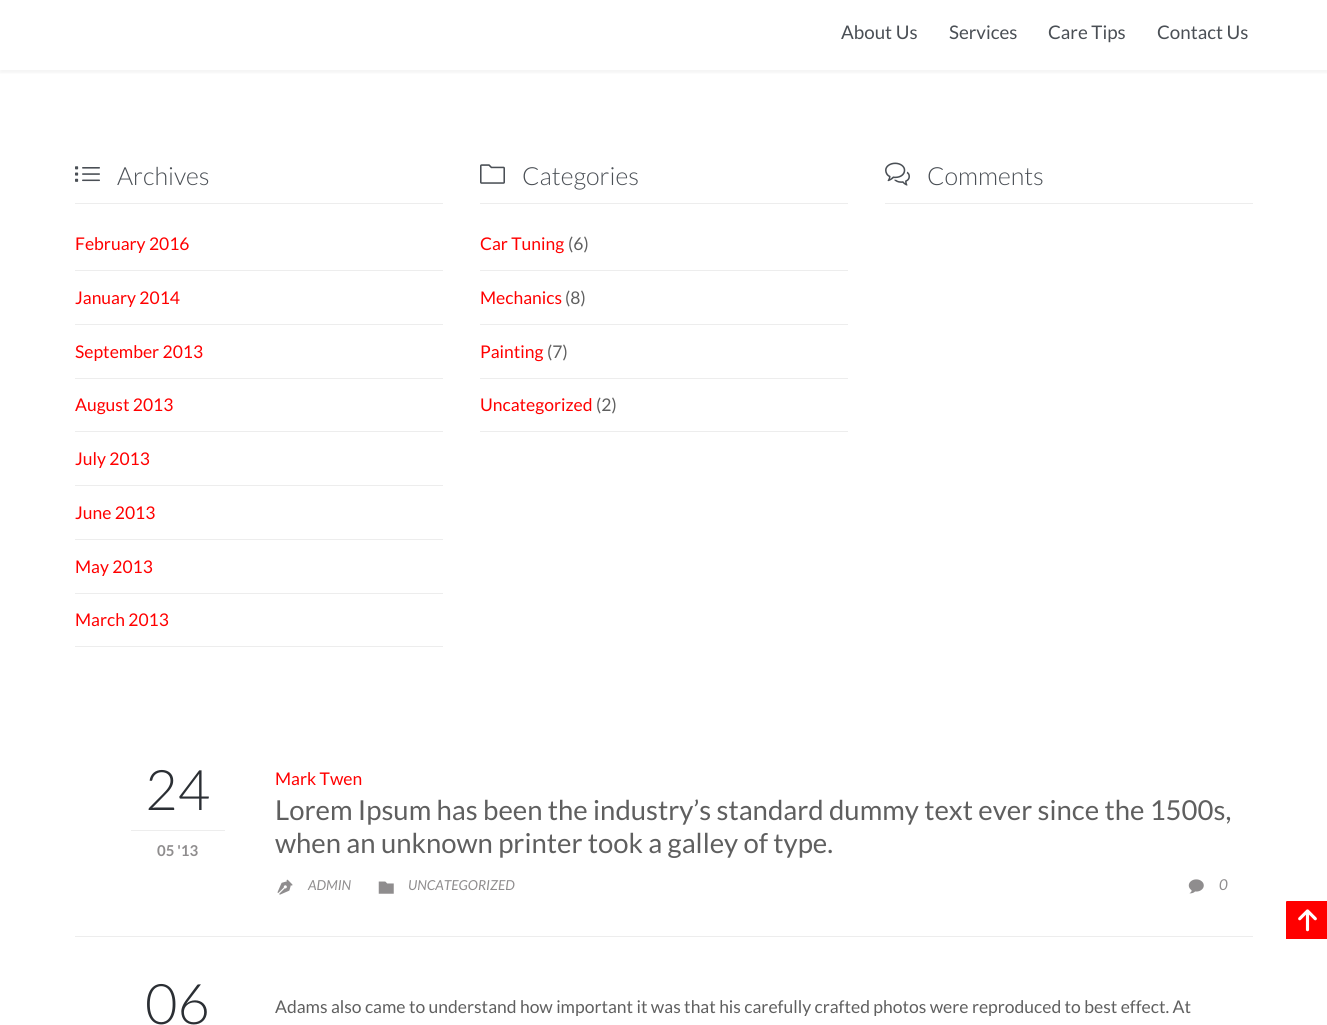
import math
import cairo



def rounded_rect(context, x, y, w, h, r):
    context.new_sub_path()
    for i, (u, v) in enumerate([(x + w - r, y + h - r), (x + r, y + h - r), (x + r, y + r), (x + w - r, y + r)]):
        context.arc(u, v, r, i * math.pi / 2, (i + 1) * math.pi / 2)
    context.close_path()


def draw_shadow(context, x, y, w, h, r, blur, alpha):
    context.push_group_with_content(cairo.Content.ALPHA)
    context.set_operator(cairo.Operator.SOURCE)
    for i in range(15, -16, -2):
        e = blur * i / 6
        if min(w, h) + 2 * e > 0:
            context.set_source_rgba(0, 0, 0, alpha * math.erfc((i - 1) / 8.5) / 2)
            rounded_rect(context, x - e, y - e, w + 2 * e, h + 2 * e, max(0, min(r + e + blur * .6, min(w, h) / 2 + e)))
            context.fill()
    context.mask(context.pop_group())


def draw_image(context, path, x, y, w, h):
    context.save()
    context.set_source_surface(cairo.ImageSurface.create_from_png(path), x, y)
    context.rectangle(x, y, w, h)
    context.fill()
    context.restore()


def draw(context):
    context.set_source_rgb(1, 1, 1)
    context.paint()
    context.set_source_rgb(0, 0, 0)
    draw_shadow(context, 0, -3, 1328, 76, 0, 1, 0.04)
    context.set_source_rgb(1, 1, 1)
    context.rectangle(0, 0, 1327, 70)
    context.fill()
    context.set_source_rgb(237 / 255, 237 / 255, 237 / 255)
    context.rectangle(75, 203, 368, 1)
    context.fill()
    draw_image(context, "images/1.png", 75, 166, 25, 16)
    context.rectangle(75, 270, 368, 1)
    context.fill()
    context.rectangle(75, 324, 368, 1)
    context.fill()
    context.rectangle(75, 378, 368, 1)
    context.fill()
    context.rectangle(75, 431, 368, 1)
    context.fill()
    context.rectangle(75, 485, 368, 1)
    context.fill()
    context.rectangle(75, 539, 368, 1)
    context.fill()
    context.rectangle(75, 593, 368, 1)
    context.fill()
    context.rectangle(75, 646, 368, 1)
    context.fill()
    context.rectangle(480, 203, 368, 1)
    context.fill()
    draw_image(context, "images/2.png", 480, 164, 25, 20)
    context.rectangle(480, 270, 368, 1)
    context.fill()
    context.rectangle(480, 324, 368, 1)
    context.fill()
    context.rectangle(480, 378, 368, 1)
    context.fill()
    context.rectangle(480, 431, 368, 1)
    context.fill()
    context.rectangle(885, 203, 368, 1)
    context.fill()
    draw_image(context, "images/3.png", 885, 162, 25, 24)
    context.rectangle(75, 936, 1178, 1)
    context.fill()
    context.rectangle(131, 830, 94, 1)
    context.fill()
    draw_image(context, "images/4.png", 277, 879, 16, 16)
    draw_image(context, "images/5.png", 378, 881, 16, 13)
    draw_image(context, "images/6.png", 1188, 879, 16, 15)
    context.set_source_rgb(1, 0, 0)
    context.new_path()
    context.move_to(1287, 901)
    context.line_to(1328, 901)
    context.line_to(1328, 939)
    context.line_to(1286, 939)
    context.line_to(1286, 902)
    context.curve_to(1286, 901.5, 1286.5, 901, 1287, 901)
    context.close_path()
    context.fill()
    draw_image(context, "images/7.png", 1298, 909, 19, 23)
    context.select_font_face("Lato")
    context.set_font_size(18.75)
    context.set_source_rgb(74 / 255, 79 / 255, 85 / 255)
    context.move_to(841, 39)
    context.show_text("About Us")
    context.move_to(949, 39)
    context.show_text("Services")
    context.move_to(1048, 39)
    context.show_text("Care Tips")
    context.move_to(1157, 39)
    context.show_text("Contact Us")
    context.select_font_face("Lato Light")
    context.set_font_size(25)
    context.move_to(117, 185)
    context.show_text("Archives")
    context.select_font_face("Lato")
    context.set_font_size(17.5)
    context.set_source_rgb(1, 0, 0)
    context.move_to(75, 250)
    context.show_text("February 2016")
    context.move_to(75, 304)
    context.show_text("January 2014")
    context.move_to(75, 358)
    context.show_text("September 2013")
    context.move_to(75, 411)
    context.show_text("August 2013")
    context.move_to(75, 465)
    context.show_text("July 2013")
    context.move_to(75, 519)
    context.show_text("June 2013")
    context.move_to(75, 573)
    context.show_text("May 2013")
    context.move_to(75, 626)
    context.show_text("March 2013")
    context.select_font_face("Lato Light")
    context.set_font_size(25)
    context.set_source_rgb(74 / 255, 79 / 255, 85 / 255)
    context.move_to(522, 185)
    context.show_text("Categories")
    context.select_font_face("Lato")
    context.set_font_size(17.5)
    context.set_source_rgb(1, 0, 0)
    context.move_to(480, 250)
    context.show_text("Car Tuning")
    context.set_source_rgb(95 / 255, 95 / 255, 95 / 255)
    context.move_to(568, 250)
    context.show_text("(6)")
    context.set_source_rgb(1, 0, 0)
    context.move_to(480, 304)
    context.show_text("Mechanics")
    context.set_source_rgb(95 / 255, 95 / 255, 95 / 255)
    context.move_to(565, 304)
    context.show_text("(8)")
    context.set_source_rgb(1, 0, 0)
    context.move_to(480, 358)
    context.show_text("Painting")
    context.set_source_rgb(95 / 255, 95 / 255, 95 / 255)
    context.move_to(547, 358)
    context.show_text("(7)")
    context.set_source_rgb(1, 0, 0)
    context.move_to(480, 411)
    context.show_text("Uncategorized")
    context.set_source_rgb(95 / 255, 95 / 255, 95 / 255)
    context.move_to(596, 411)
    context.show_text("(2)")
    context.select_font_face("Lato Light")
    context.set_font_size(25)
    context.set_source_rgb(74 / 255, 79 / 255, 85 / 255)
    context.move_to(927, 185)
    context.show_text("Comments")
    context.set_font_size(56)
    context.set_source_rgb(43 / 255, 47 / 255, 52 / 255)
    context.move_to(145, 810)
    context.show_text("24")
    context.select_font_face("Lato", cairo.FontSlant.NORMAL, cairo.FontWeight.BOLD)
    context.set_font_size(15)
    context.set_source_rgb(143 / 255, 141 / 255, 142 / 255)
    context.move_to(157, 856)
    context.show_text("05 '13")
    context.select_font_face("Lato")
    context.set_font_size(17.5)
    context.set_source_rgb(1, 0, 0)
    context.move_to(275, 785)
    context.show_text("Mark Twen")
    context.set_font_size(27.5)
    context.set_source_rgb(95 / 255, 95 / 255, 95 / 255)
    context.move_to(275, 820)
    context.show_text("Lorem Ipsum has been the industry’s standard dummy text ever since the 1500s,")
    context.move_to(275, 853)
    context.show_text("when an unknown printer took a galley of type.")
    context.select_font_face("Lato", cairo.FontSlant.ITALIC)
    context.set_font_size(13.75)
    context.set_source_rgb(143 / 255, 141 / 255, 142 / 255)
    context.move_to(308, 890)
    context.show_text("ADMIN")
    context.move_to(408, 890)
    context.show_text("UNCATEGORIZED")
    context.set_font_size(15)
    context.move_to(1219, 890)
    context.show_text("0")
    context.select_font_face("Lato Light")
    context.set_font_size(56)
    context.set_source_rgb(43 / 255, 47 / 255, 52 / 255)
    context.move_to(145, 1024)
    context.show_text("06")
    context.select_font_face("Lato")
    context.set_font_size(17.5)
    context.set_source_rgb(95 / 255, 95 / 255, 95 / 255)
    context.move_to(275, 1013)
    context.show_text("Adams also came to understand how important it was that his carefully crafted photos were reproduced to best effect. At")


surface = cairo.ImageSurface(cairo.Format.RGB24, 1327, 1025)
context = cairo.Context(surface)
options = cairo.FontOptions()
options.set_hint_metrics(cairo.HintMetrics.OFF)
options.set_hint_style(cairo.HintStyle.NONE)
context.set_font_options(options)
context.set_miter_limit(4)
draw(context)
surface.write_to_png("out.png")
